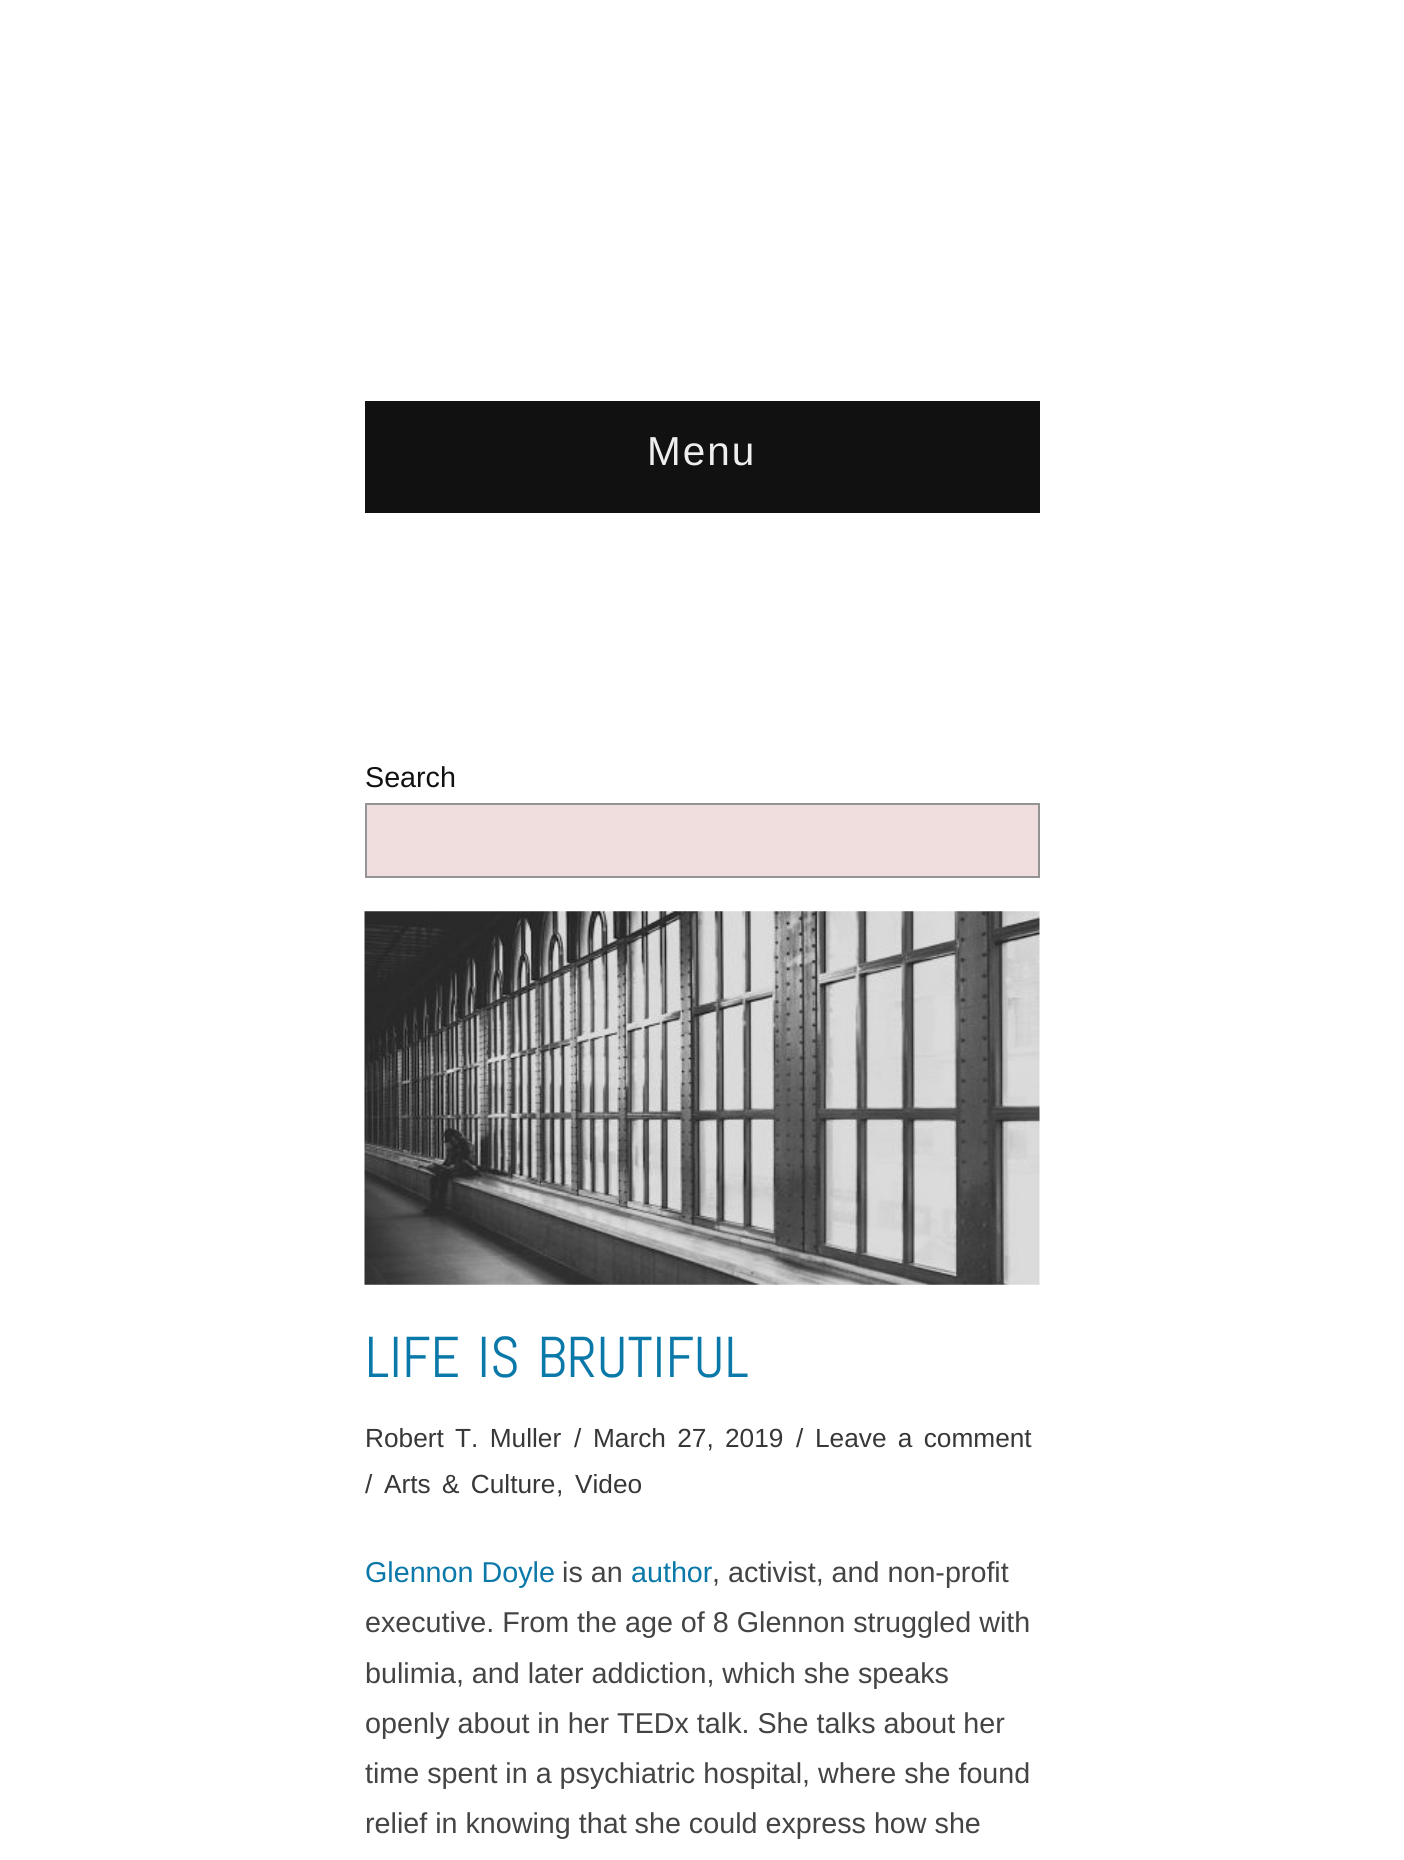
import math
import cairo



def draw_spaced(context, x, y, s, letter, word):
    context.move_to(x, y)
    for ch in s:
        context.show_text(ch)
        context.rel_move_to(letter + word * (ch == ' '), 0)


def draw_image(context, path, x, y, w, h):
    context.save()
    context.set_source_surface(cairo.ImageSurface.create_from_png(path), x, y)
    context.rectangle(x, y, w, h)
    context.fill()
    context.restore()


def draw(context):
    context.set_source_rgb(1, 1, 1)
    context.paint()
    context.set_source_rgb(17 / 255, 17 / 255, 17 / 255)
    context.rectangle(365, 401, 675, 112)
    context.fill()
    context.set_source_rgb(240 / 255, 221 / 255, 221 / 255)
    context.rectangle(366, 804, 673, 73)
    context.fill_preserve()
    context.set_source_rgb(148 / 255, 148 / 255, 148 / 255)
    context.stroke()
    draw_image(context, "images/1.png", 364, 911, 676, 374)
    context.select_font_face("Liberation Sans")
    context.set_font_size(40.5)
    context.set_source_rgb(238 / 255, 238 / 255, 238 / 255)
    draw_spaced(context, 647, 465, "Menu", 2, 0)
    context.set_font_size(28.7)
    context.set_source_rgb(17 / 255, 17 / 255, 17 / 255)
    context.move_to(365, 787)
    context.show_text("Search")
    context.select_font_face("Abel")
    context.set_font_size(57.5)
    context.set_source_rgb(10 / 255, 120 / 255, 168 / 255)
    draw_spaced(context, 365, 1377, "LIFE IS BRUTIFUL", 0, 4)
    context.select_font_face("Liberation Sans")
    context.set_font_size(26.25)
    context.set_source_rgb(55 / 255, 55 / 255, 55 / 255)
    draw_spaced(context, 365, 1447, "Robert T. Muller", 0, 4)
    context.move_to(574, 1447)
    context.show_text("/")
    draw_spaced(context, 593, 1447, "March 27, 2019", 0, 4)
    context.move_to(796, 1447)
    context.show_text("/")
    draw_spaced(context, 815, 1447, "Leave a comment", 0, 4)
    context.move_to(365, 1493)
    context.show_text("/")
    draw_spaced(context, 384, 1493, "Arts & Culture", 0, 4)
    context.move_to(556, 1493)
    context.show_text(",")
    context.move_to(575, 1493)
    context.show_text("Video")
    context.set_font_size(28.7)
    context.set_source_rgb(10 / 255, 120 / 255, 168 / 255)
    context.move_to(365, 1582)
    context.show_text("Glennon Doyle")
    context.set_source_rgb(68 / 255, 68 / 255, 68 / 255)
    context.move_to(562, 1582)
    context.show_text("is an")
    context.set_source_rgb(10 / 255, 120 / 255, 168 / 255)
    context.move_to(631, 1582)
    context.show_text("author")
    context.set_source_rgb(68 / 255, 68 / 255, 68 / 255)
    context.move_to(712, 1582)
    context.show_text(", activist, and non-profit")
    context.move_to(365, 1632)
    context.show_text("executive. From the age of 8 Glennon struggled with")
    context.move_to(365, 1683)
    context.show_text("bulimia, and later addiction, which she speaks")
    context.move_to(365, 1733)
    context.show_text("openly about in her TEDx talk. She talks about her")
    context.move_to(365, 1783)
    context.show_text("time spent in a psychiatric hospital, where she found")
    context.move_to(365, 1833)
    context.show_text("relief in knowing that she could express how she")


surface = cairo.ImageSurface(cairo.Format.RGB24, 1404, 1860)
context = cairo.Context(surface)
options = cairo.FontOptions()
options.set_hint_metrics(cairo.HintMetrics.OFF)
options.set_hint_style(cairo.HintStyle.NONE)
context.set_font_options(options)
context.set_miter_limit(4)
draw(context)
surface.write_to_png("out.png")
